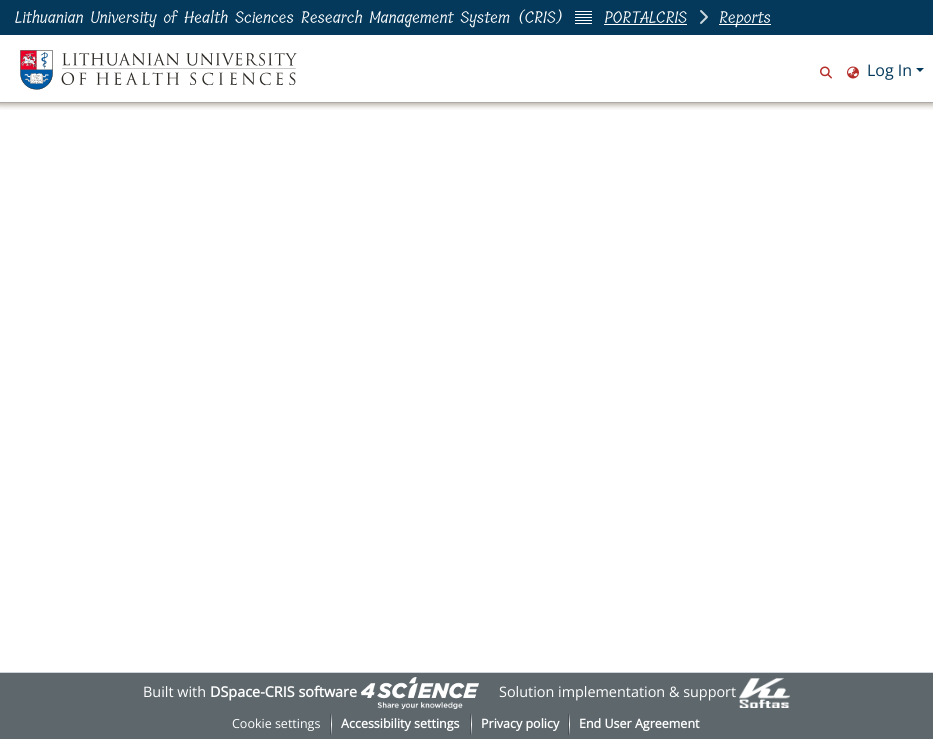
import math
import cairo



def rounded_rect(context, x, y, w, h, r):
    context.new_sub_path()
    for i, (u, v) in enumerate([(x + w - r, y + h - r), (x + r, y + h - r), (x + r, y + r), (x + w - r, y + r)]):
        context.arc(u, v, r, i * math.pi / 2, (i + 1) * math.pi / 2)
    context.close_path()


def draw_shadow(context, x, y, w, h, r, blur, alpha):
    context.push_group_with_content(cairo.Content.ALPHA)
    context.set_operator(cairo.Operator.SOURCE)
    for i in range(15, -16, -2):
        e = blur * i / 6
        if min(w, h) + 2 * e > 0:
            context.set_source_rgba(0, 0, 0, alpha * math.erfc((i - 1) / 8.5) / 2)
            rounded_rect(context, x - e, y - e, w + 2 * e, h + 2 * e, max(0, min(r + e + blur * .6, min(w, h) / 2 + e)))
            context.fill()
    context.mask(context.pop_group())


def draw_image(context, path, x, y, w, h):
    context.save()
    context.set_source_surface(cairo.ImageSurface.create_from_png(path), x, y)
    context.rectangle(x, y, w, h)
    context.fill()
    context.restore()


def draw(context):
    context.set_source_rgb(1, 1, 1)
    context.paint()
    context.save()
    context.rectangle(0, 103, 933, 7)
    context.clip()
    context.set_source_rgb(104 / 255, 87 / 255, 68 / 255)
    draw_shadow(context, -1, 0, 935, 105, 0, 3, 0.5)
    context.restore()
    context.set_source_rgb(170 / 255, 170 / 255, 170 / 255)
    context.rectangle(0, 102, 933, 1)
    context.fill()
    context.set_source_rgb(4 / 255, 57 / 255, 91 / 255)
    context.rectangle(0, 0, 933, 35)
    context.fill()
    context.set_source_rgb(1, 1, 1)
    context.rectangle(575, 11, 17, 1)
    context.fill()
    context.rectangle(575, 14, 17, 1)
    context.fill()
    context.rectangle(575, 17, 17, 1)
    context.fill()
    context.rectangle(575, 20, 17, 1)
    context.fill()
    context.rectangle(575, 23, 17, 1)
    context.fill()
    context.rectangle(604, 24, 83, 1)
    context.fill()
    draw_image(context, "images/1.png", 700, 10, 8, 14)
    context.rectangle(719, 24, 52, 1)
    context.fill()
    draw_image(context, "images/2.png", 20, 50, 277, 40)
    draw_image(context, "images/3.png", 820, 66, 12, 13)
    draw_image(context, "images/4.png", 847, 66, 12, 13)
    context.set_source_rgb(4 / 255, 57 / 255, 91 / 255)
    context.new_path()
    context.move_to(916, 68)
    context.line_to(924, 68)
    context.line_to(920, 72)
    context.close_path()
    context.fill()
    context.set_source_rgb(93 / 255, 103 / 255, 108 / 255)
    context.rectangle(0, 673, 933, 66)
    context.fill()
    context.set_source_rgb(206 / 255, 212 / 255, 218 / 255)
    context.rectangle(0, 672, 933, 1)
    context.fill()
    draw_image(context, "images/5.png", 361, 677, 118, 32)
    draw_image(context, "images/6.png", 739, 678, 51, 30)
    draw_image(context, "images/7.png", 331, 714, 1, 21)
    context.set_source_rgb(73 / 255, 80 / 255, 87 / 255)
    context.rectangle(330, 714, 1, 21)
    context.fill()
    draw_image(context, "images/7.png", 471, 714, 1, 21)
    context.rectangle(470, 714, 1, 21)
    context.fill()
    draw_image(context, "images/7.png", 569, 714, 1, 21)
    context.rectangle(568, 714, 1, 21)
    context.fill()
    context.select_font_face("Tillana")
    context.set_font_size(16)
    context.set_source_rgb(1, 1, 1)
    context.move_to(15, 23)
    context.show_text("Lithuanian University of Health Sciences Research Management System (CRIS)")
    context.move_to(604, 23)
    context.show_text("PORTALCRIS")
    context.move_to(719, 23)
    context.show_text("Reports")
    context.select_font_face("Open Sans")
    context.set_source_rgb(4 / 255, 57 / 255, 91 / 255)
    context.move_to(867, 76)
    context.show_text("Log In")
    context.set_font_size(14.4)
    context.set_source_rgb(1, 1, 1)
    context.move_to(143, 697)
    context.show_text("Built with")
    context.select_font_face("Open Sans", cairo.FontSlant.NORMAL, cairo.FontWeight.BOLD)
    context.move_to(210, 697)
    context.show_text("DSpace-CRIS software")
    context.select_font_face("Open Sans")
    context.move_to(499, 697)
    context.show_text("Solution implementation & support")
    context.set_font_size(12.5)
    context.move_to(232, 728)
    context.show_text("Cookie settings")
    context.select_font_face("Open Sans", cairo.FontSlant.NORMAL, cairo.FontWeight.BOLD)
    context.move_to(341, 728)
    context.show_text("Accessibility settings")
    context.move_to(481, 728)
    context.show_text("Privacy policy")
    context.move_to(579, 728)
    context.show_text("End User Agreement")


surface = cairo.ImageSurface(cairo.Format.RGB24, 933, 739)
context = cairo.Context(surface)
options = cairo.FontOptions()
options.set_hint_metrics(cairo.HintMetrics.OFF)
options.set_hint_style(cairo.HintStyle.NONE)
context.set_font_options(options)
context.set_miter_limit(4)
draw(context)
surface.write_to_png("out.png")
